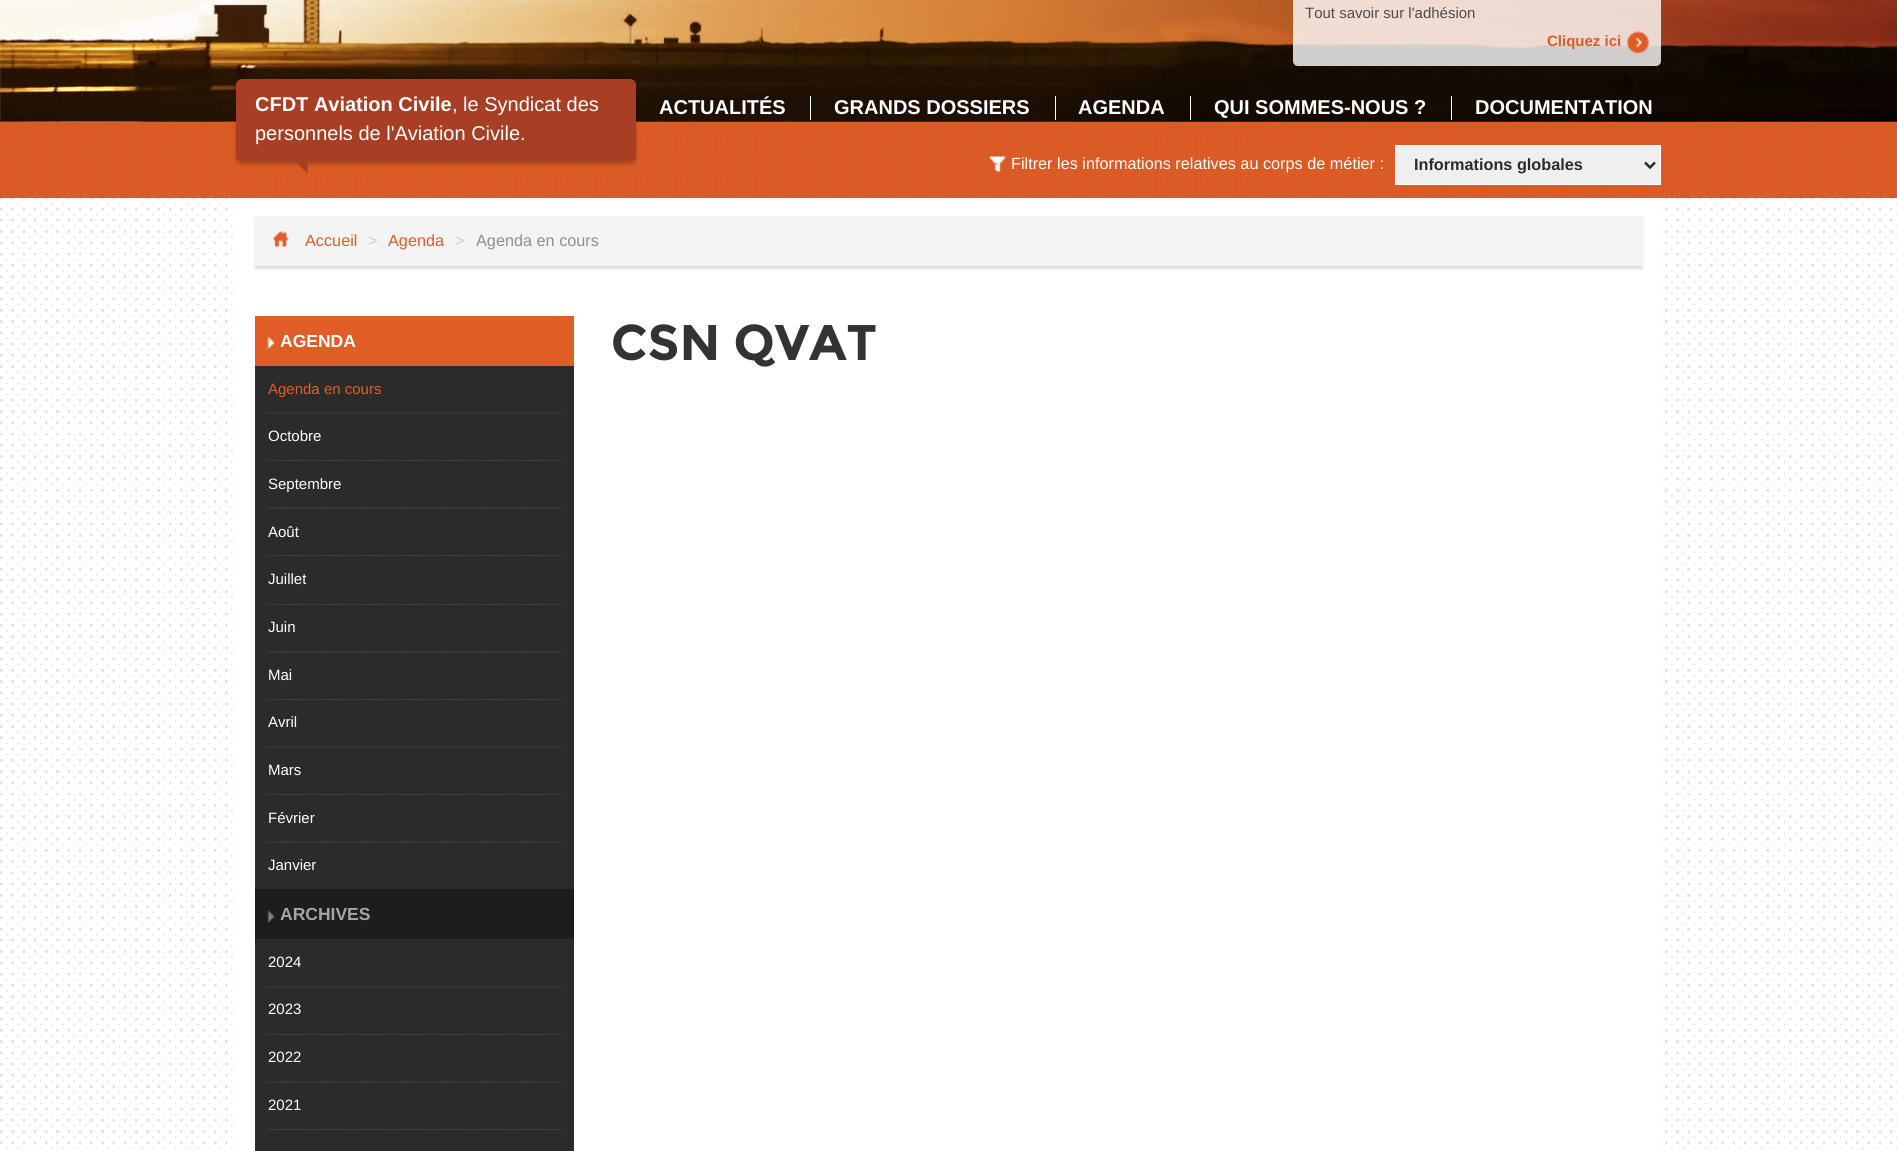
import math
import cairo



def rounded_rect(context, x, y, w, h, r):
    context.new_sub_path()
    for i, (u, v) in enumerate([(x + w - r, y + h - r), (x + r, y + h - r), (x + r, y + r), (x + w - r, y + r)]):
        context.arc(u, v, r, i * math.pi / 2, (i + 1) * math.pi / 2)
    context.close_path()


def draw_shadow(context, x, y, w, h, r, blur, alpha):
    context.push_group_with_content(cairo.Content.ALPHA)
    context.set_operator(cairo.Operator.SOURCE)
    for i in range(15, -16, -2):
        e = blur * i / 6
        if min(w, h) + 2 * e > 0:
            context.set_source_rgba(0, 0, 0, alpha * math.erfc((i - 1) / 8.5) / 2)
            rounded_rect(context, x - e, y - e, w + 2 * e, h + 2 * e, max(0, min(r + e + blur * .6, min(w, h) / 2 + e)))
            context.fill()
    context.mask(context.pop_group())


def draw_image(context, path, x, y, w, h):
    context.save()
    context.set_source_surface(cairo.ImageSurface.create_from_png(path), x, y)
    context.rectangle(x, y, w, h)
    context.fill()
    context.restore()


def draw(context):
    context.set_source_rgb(1, 1, 1)
    context.paint()
    draw_image(context, "images/1.png", 0, 198, 1897, 952)
    context.set_source_rgb(224 / 255, 93 / 255, 38 / 255)
    context.rectangle(0, 121, 1897, 77)
    context.fill()
    draw_image(context, "images/2.png", 0, 121, 1897, 1)
    draw_image(context, "images/3.png", 0, 0, 1897, 122)
    context.set_source_rgba(1, 1, 1, 0.8)
    rounded_rect(context, 1293, -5, 368, 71, 5)
    context.fill()
    draw_image(context, "images/4.png", 1627, 31, 22, 23)
    context.set_source_rgb(1, 1, 1)
    context.rectangle(810, 96, 1, 24)
    context.fill()
    context.rectangle(1055, 96, 1, 24)
    context.fill()
    context.rectangle(1190, 96, 1, 24)
    context.fill()
    context.rectangle(1451, 96, 1, 24)
    context.fill()
    draw_image(context, "images/5.png", 0, 122, 1897, 76)
    context.set_source_rgb(0, 0, 0)
    draw_shadow(context, 236, 81, 400, 83, 6, 2, 0.25)
    context.set_source_rgb(168 / 255, 63 / 255, 36 / 255)
    rounded_rect(context, 236, 79, 400, 82, 6)
    context.fill()
    context.new_path()
    context.move_to(295, 148.5)
    context.line_to(307.5, 161)
    context.line_to(307.5, 173.5)
    context.line_to(295, 161)
    context.close_path()
    context.fill()
    draw_image(context, "images/6.png", 990, 156, 16, 17)
    context.set_source_rgb(239 / 255, 239 / 255, 239 / 255)
    context.rectangle(1395.5, 145.5, 265, 39)
    context.fill_preserve()
    context.set_source_rgb(1, 1, 1)
    context.set_line_width(1)
    context.stroke()
    context.new_path()
    context.move_to(1645, 162.5)
    context.line_to(1650, 167.5)
    context.line_to(1655, 162.5)
    context.set_source_rgb(43 / 255, 43 / 255, 43 / 255)
    context.set_line_width(2.5)
    context.stroke()
    context.set_source_rgb(1, 1, 1)
    context.rectangle(236, 198, 1425, 952)
    context.fill()
    context.set_source_rgb(222 / 255, 222 / 255, 222 / 255)
    draw_shadow(context, 255, 219, 1388, 50, 0, 1, 1)
    context.set_source_rgb(244 / 255, 244 / 255, 244 / 255)
    context.rectangle(255, 216, 1388, 50)
    context.fill()
    draw_image(context, "images/7.png", 273, 231, 16, 17)
    context.set_source_rgb(224 / 255, 93 / 255, 38 / 255)
    context.rectangle(255, 316, 319, 50)
    context.fill()
    draw_image(context, "images/8.png", 267, 336, 8, 13)
    context.set_source_rgb(43 / 255, 43 / 255, 43 / 255)
    context.rectangle(255, 366, 319, 523)
    context.fill()
    context.new_path()
    context.move_to(267.5, 413)
    context.line_to(561, 413)
    context.set_source_rgb(75 / 255, 77 / 255, 77 / 255)
    context.set_line_width(1.2)
    context.set_dash([1.25, 1.25])
    context.stroke()
    context.new_path()
    context.move_to(267.5, 460.5)
    context.line_to(561, 460.5)
    context.stroke()
    context.new_path()
    context.move_to(267.5, 508)
    context.line_to(561, 508)
    context.stroke()
    context.new_path()
    context.move_to(267.5, 555.5)
    context.line_to(561, 555.5)
    context.stroke()
    context.new_path()
    context.move_to(267.5, 604.5)
    context.line_to(561, 604.5)
    context.stroke()
    context.new_path()
    context.move_to(267.5, 652)
    context.line_to(561, 652)
    context.stroke()
    context.new_path()
    context.move_to(267.5, 699.5)
    context.line_to(561, 699.5)
    context.stroke()
    context.new_path()
    context.move_to(267.5, 747)
    context.line_to(561, 747)
    context.stroke()
    context.new_path()
    context.move_to(267.5, 794.5)
    context.line_to(561, 794.5)
    context.stroke()
    context.new_path()
    context.move_to(267.5, 842)
    context.line_to(561, 842)
    context.stroke()
    context.set_source_rgb(29 / 255, 29 / 255, 29 / 255)
    context.rectangle(255, 889, 319, 50)
    context.fill()
    draw_image(context, "images/9.png", 267, 910, 8, 13)
    context.set_source_rgb(43 / 255, 43 / 255, 43 / 255)
    context.rectangle(255, 939, 319, 212)
    context.fill()
    context.new_path()
    context.move_to(267.5, 987)
    context.line_to(561, 987)
    context.set_source_rgb(75 / 255, 77 / 255, 77 / 255)
    context.stroke()
    context.new_path()
    context.move_to(267.5, 1034.5)
    context.line_to(561, 1034.5)
    context.stroke()
    context.new_path()
    context.move_to(267.5, 1082)
    context.line_to(561, 1082)
    context.stroke()
    context.new_path()
    context.move_to(267.5, 1129.5)
    context.line_to(561, 1129.5)
    context.stroke()
    context.select_font_face("Liberation Sans")
    context.set_font_size(15)
    context.set_source_rgb(76 / 255, 76 / 255, 76 / 255)
    context.move_to(1305, 18)
    context.show_text("Tout savoir sur l'adhésion")
    context.select_font_face("Liberation Sans", cairo.FontSlant.NORMAL, cairo.FontWeight.BOLD)
    context.set_source_rgb(218 / 255, 91 / 255, 37 / 255)
    context.move_to(1547, 46)
    context.show_text("Cliquez ici")
    context.set_font_size(20)
    context.set_source_rgb(1, 1, 1)
    context.move_to(659, 114)
    context.show_text("ACTUALITÉS")
    context.move_to(834, 114)
    context.show_text("GRANDS DOSSIERS")
    context.move_to(1078, 114)
    context.show_text("AGENDA")
    context.move_to(1214, 114)
    context.show_text("QUI SOMMES-NOUS ?")
    context.move_to(1475, 114)
    context.show_text("DOCUMENTATION")
    context.move_to(255, 111)
    context.show_text("CFDT Aviation Civile")
    context.select_font_face("Liberation Sans")
    context.move_to(452, 111)
    context.show_text(", le Syndicat des")
    context.move_to(255, 140)
    context.show_text("personnels de l'Aviation Civile.")
    context.set_font_size(16.25)
    context.move_to(1011, 169)
    context.show_text("Filtrer les informations relatives au corps de métier :")
    context.select_font_face("Liberation Sans", cairo.FontSlant.NORMAL, cairo.FontWeight.BOLD)
    context.set_source_rgb(43 / 255, 43 / 255, 43 / 255)
    context.move_to(1414, 170)
    context.show_text("Informations globales")
    context.select_font_face("Liberation Sans")
    context.set_source_rgb(224 / 255, 93 / 255, 38 / 255)
    context.move_to(305, 246)
    context.show_text("Accueil")
    context.set_source_rgb(204 / 255, 204 / 255, 204 / 255)
    context.move_to(368, 246)
    context.show_text(">")
    context.set_source_rgb(224 / 255, 93 / 255, 38 / 255)
    context.move_to(388, 246)
    context.show_text("Agenda")
    context.set_source_rgb(204 / 255, 204 / 255, 204 / 255)
    context.move_to(455, 246)
    context.show_text(">")
    context.set_source_rgb(143 / 255, 143 / 255, 143 / 255)
    context.move_to(476, 246)
    context.show_text("Agenda en cours")
    context.select_font_face("Liberation Sans", cairo.FontSlant.NORMAL, cairo.FontWeight.BOLD)
    context.set_font_size(17.5)
    context.set_source_rgb(1, 1, 1)
    context.move_to(280, 347)
    context.show_text("AGENDA")
    context.select_font_face("Liberation Sans")
    context.set_font_size(15)
    context.set_source_rgb(224 / 255, 93 / 255, 38 / 255)
    context.move_to(268, 394)
    context.show_text("Agenda en cours")
    context.set_source_rgb(1, 1, 1)
    context.move_to(268, 441)
    context.show_text("Octobre")
    context.move_to(268, 489)
    context.show_text("Septembre")
    context.move_to(268, 537)
    context.show_text("Août")
    context.move_to(268, 584)
    context.show_text("Juillet")
    context.move_to(268, 632)
    context.show_text("Juin")
    context.move_to(268, 680)
    context.show_text("Mai")
    context.move_to(268, 727)
    context.show_text("Avril")
    context.move_to(268, 775)
    context.show_text("Mars")
    context.move_to(268, 823)
    context.show_text("Février")
    context.move_to(268, 870)
    context.show_text("Janvier")
    context.select_font_face("Liberation Sans", cairo.FontSlant.NORMAL, cairo.FontWeight.BOLD)
    context.set_font_size(17.5)
    context.set_source_rgb(165 / 255, 165 / 255, 165 / 255)
    context.move_to(280, 920)
    context.show_text("ARCHIVES")
    context.select_font_face("Liberation Sans")
    context.set_font_size(15)
    context.set_source_rgb(1, 1, 1)
    context.move_to(268, 967)
    context.show_text("2024")
    context.move_to(268, 1014)
    context.show_text("2023")
    context.move_to(268, 1062)
    context.show_text("2022")
    context.move_to(268, 1110)
    context.show_text("2021")
    context.select_font_face("Montserrat", cairo.FontSlant.NORMAL, cairo.FontWeight.BOLD)
    context.set_font_size(50)
    context.set_source_rgb(51 / 255, 51 / 255, 51 / 255)
    context.move_to(611, 360)
    context.show_text("CSN QVAT")


surface = cairo.ImageSurface(cairo.Format.RGB24, 1897, 1151)
context = cairo.Context(surface)
options = cairo.FontOptions()
options.set_hint_metrics(cairo.HintMetrics.OFF)
options.set_hint_style(cairo.HintStyle.NONE)
context.set_font_options(options)
context.set_miter_limit(4)
draw(context)
surface.write_to_png("out.png")
